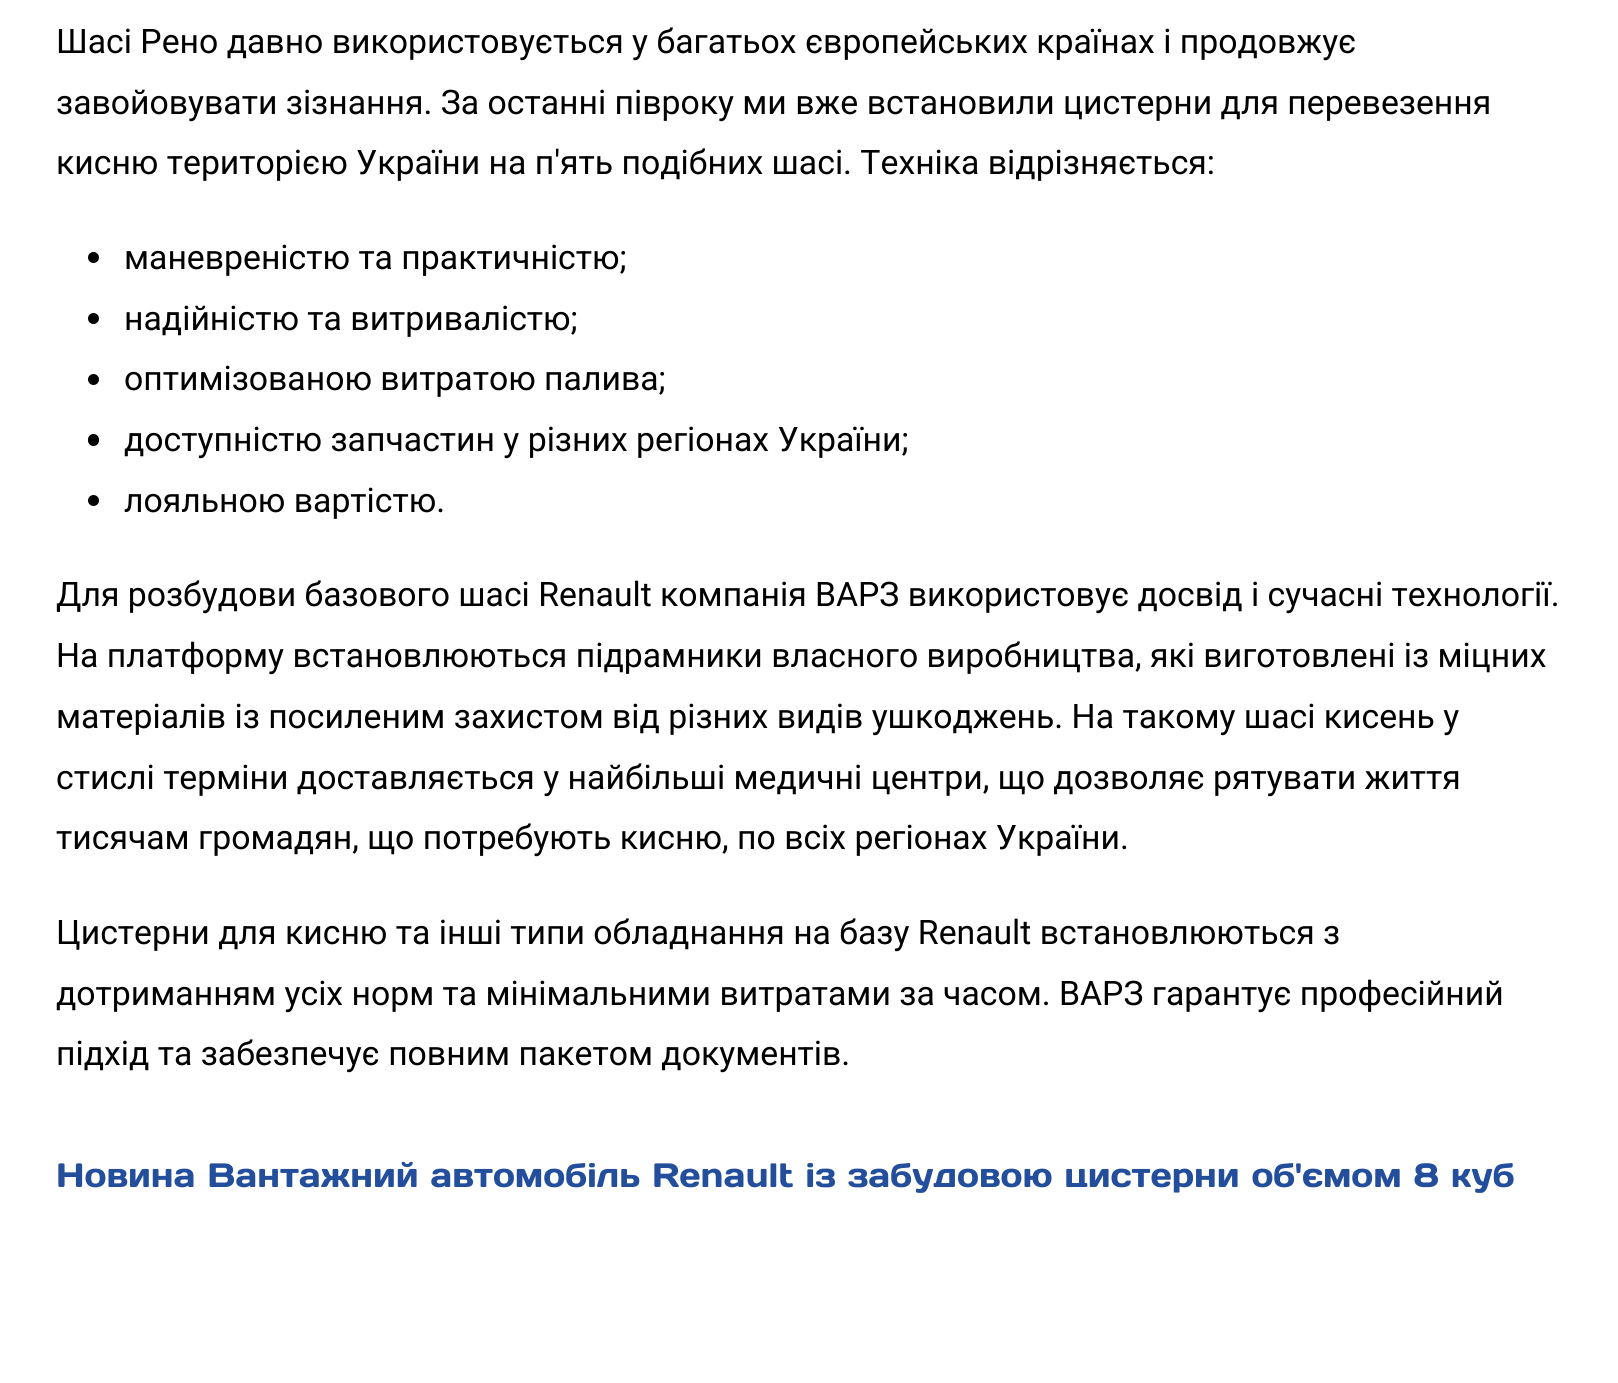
import math
import cairo



def rounded_rect(context, x, y, w, h, r):
    context.new_sub_path()
    for i, (u, v) in enumerate([(x + w - r, y + h - r), (x + r, y + h - r), (x + r, y + r), (x + w - r, y + r)]):
        context.arc(u, v, r, i * math.pi / 2, (i + 1) * math.pi / 2)
    context.close_path()


def draw(context):
    context.set_source_rgb(1, 1, 1)
    context.paint()
    context.set_source_rgb(0, 0, 0)
    context.arc(93.5, 257.5, 5.5, 0, 2 * math.pi)
    context.fill()
    context.arc(93.5, 318.5, 5.5, 0, 2 * math.pi)
    context.fill()
    context.arc(93.5, 379.5, 5.5, 0, 2 * math.pi)
    context.fill()
    rounded_rect(context, 88, 434, 11, 12, 5.5)
    context.fill()
    context.arc(93.5, 500.5, 5.5, 0, 2 * math.pi)
    context.fill()
    context.select_font_face("Roboto")
    context.set_font_size(33.75)
    context.move_to(56, 53)
    context.show_text("Шасі Рено давно використовується у багатьох європейських країнах і продовжує")
    context.move_to(56, 114)
    context.show_text("завойовувати зізнання. За останні півроку ми вже встановили цистерни для перевезення")
    context.move_to(56, 174)
    context.show_text("кисню територією України на п'ять подібних шасі. Техніка відрізняється:")
    context.move_to(124, 269)
    context.show_text("маневреністю та практичністю;")
    context.move_to(124, 330)
    context.show_text("надійністю та витривалістю;")
    context.move_to(124, 390)
    context.show_text("оптимізованою витратою палива;")
    context.move_to(124, 451)
    context.show_text("доступністю запчастин у різних регіонах України;")
    context.move_to(124, 512)
    context.show_text("лояльною вартістю.")
    context.move_to(56, 606)
    context.show_text("Для розбудови базового шасі Renault компанія ВАРЗ використовує досвід і сучасні технології.")
    context.move_to(56, 667)
    context.show_text("На платформу встановлюються підрамники власного виробництва, які виготовлені із міцних")
    context.move_to(56, 728)
    context.show_text("матеріалів із посиленим захистом від різних видів ушкоджень. На такому шасі кисень у")
    context.move_to(56, 789)
    context.show_text("стислі терміни доставляється у найбільші медичні центри, що дозволяє рятувати життя")
    context.move_to(56, 849)
    context.show_text("тисячам громадян, що потребують кисню, по всіх регіонах України.")
    context.move_to(56, 944)
    context.show_text("Цистерни для кисню та інші типи обладнання на базу Renault встановлюються з")
    context.move_to(56, 1005)
    context.show_text("дотриманням усіх норм та мінімальними витратами за часом. ВАРЗ гарантує професійний")
    context.move_to(56, 1065)
    context.show_text("підхід та забезпечує повним пакетом документів.")
    context.select_font_face("Days One")
    context.set_source_rgb(34 / 255, 78 / 255, 156 / 255)
    context.move_to(56, 1187)
    context.show_text("Новина Вантажний автомобіль Renault із забудовою цистерни об'ємом 8 куб")


surface = cairo.ImageSurface(cairo.Format.RGB24, 1618, 1383)
context = cairo.Context(surface)
options = cairo.FontOptions()
options.set_hint_metrics(cairo.HintMetrics.OFF)
options.set_hint_style(cairo.HintStyle.NONE)
context.set_font_options(options)
context.set_miter_limit(4)
draw(context)
surface.write_to_png("out.png")
